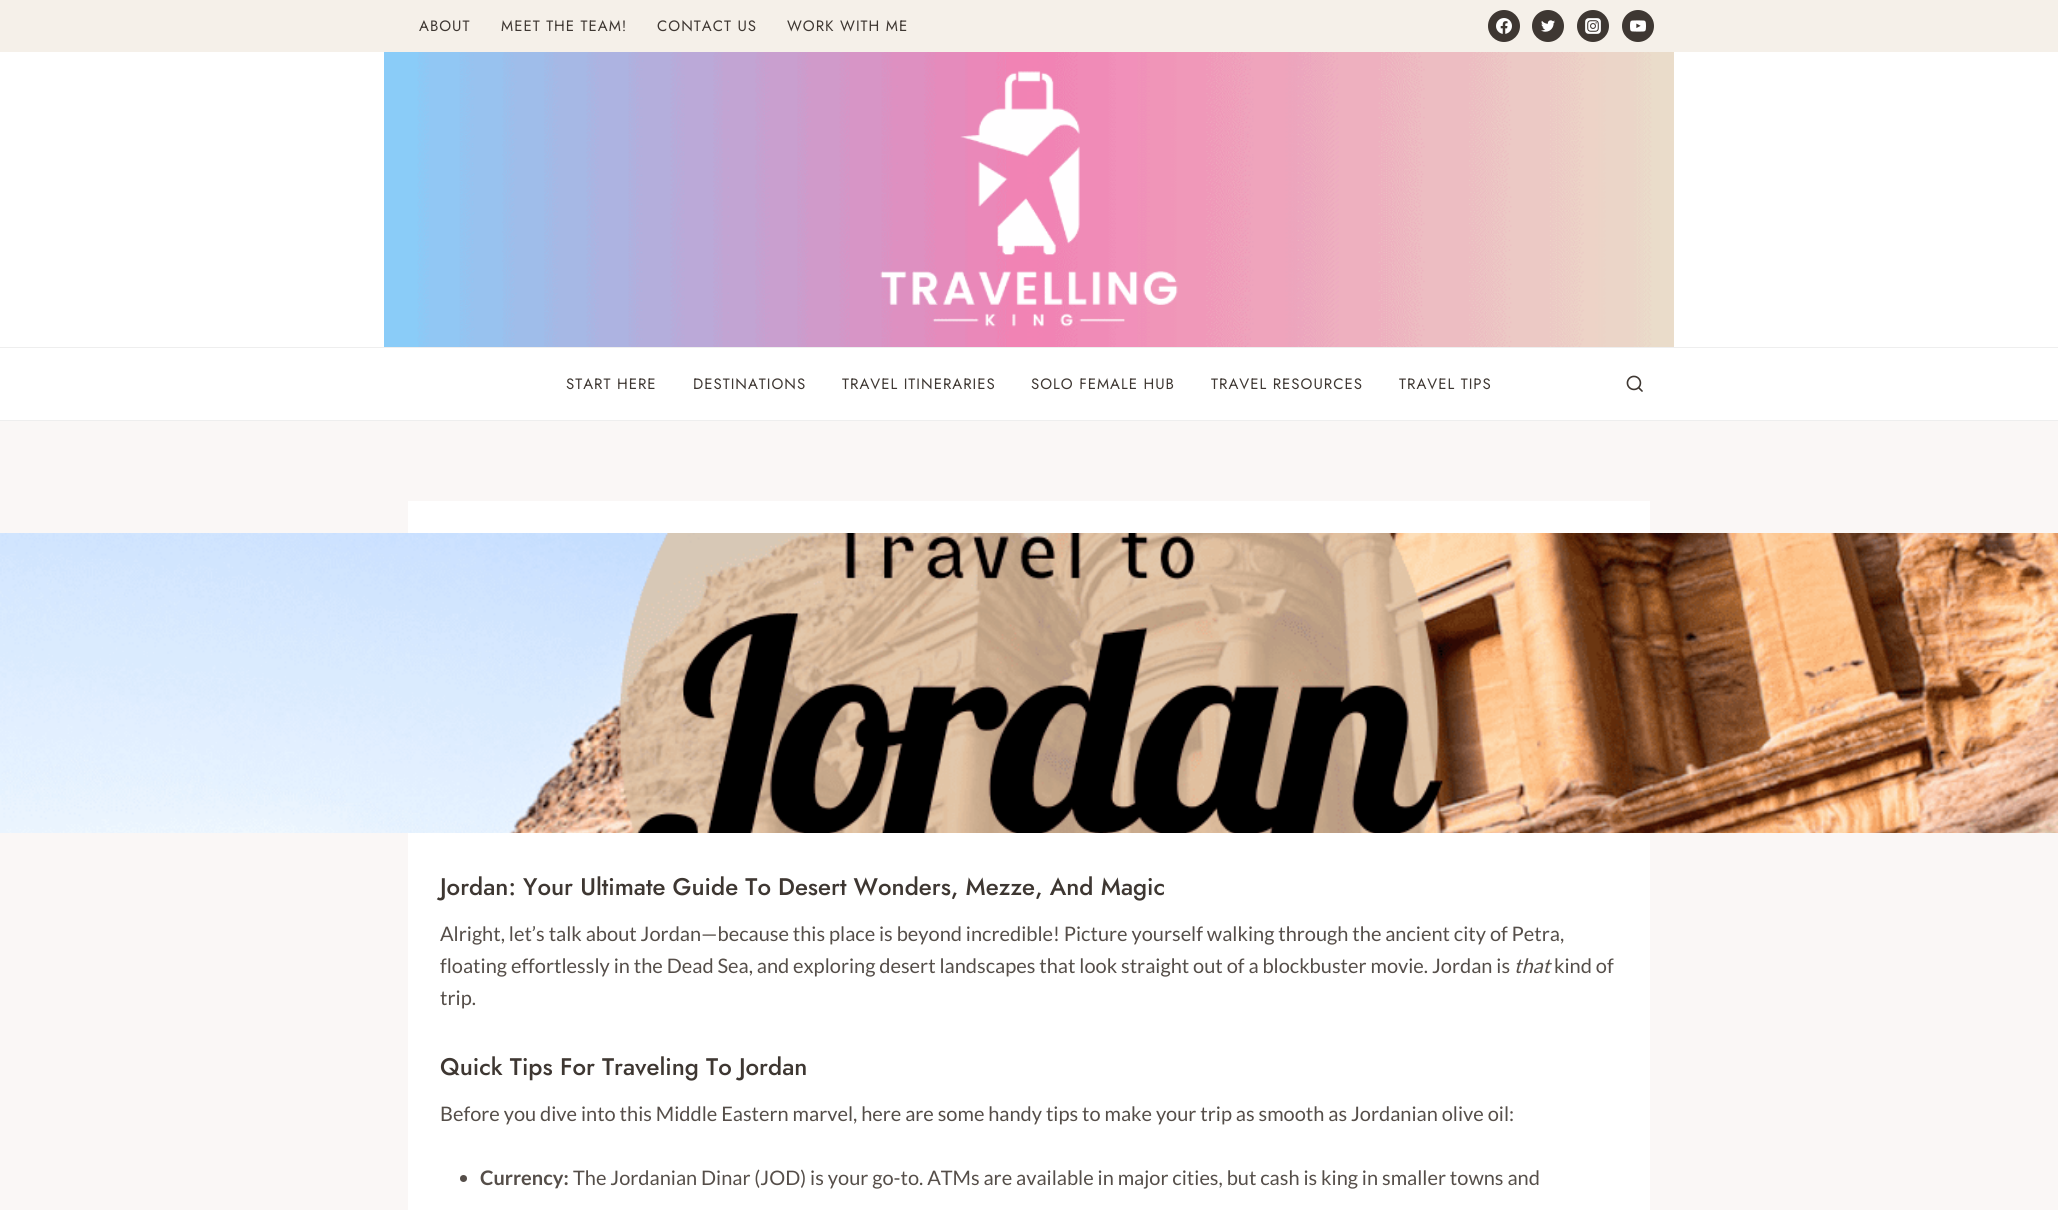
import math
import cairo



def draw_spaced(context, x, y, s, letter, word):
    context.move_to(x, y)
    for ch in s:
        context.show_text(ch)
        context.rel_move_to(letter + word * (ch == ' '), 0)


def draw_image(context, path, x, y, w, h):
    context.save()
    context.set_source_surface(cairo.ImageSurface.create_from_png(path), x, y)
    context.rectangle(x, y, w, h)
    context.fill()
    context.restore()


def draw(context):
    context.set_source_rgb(250 / 255, 247 / 255, 246 / 255)
    context.paint()
    context.set_source_rgb(1, 1, 1)
    context.rectangle(0, 52, 2058, 368)
    context.fill()
    context.set_source_rgb(245 / 255, 240 / 255, 233 / 255)
    context.rectangle(0, 0, 2058, 52)
    context.fill()
    context.set_source_rgb(62 / 255, 55 / 255, 50 / 255)
    context.arc(1504, 26, 16, 0, 2 * math.pi)
    context.fill()
    draw_image(context, "images/1.png", 1496, 18, 16, 16)
    context.arc(1548, 26, 16, 0, 2 * math.pi)
    context.fill()
    draw_image(context, "images/2.png", 1541, 20, 14, 12)
    context.arc(1593, 26, 16, 0, 2 * math.pi)
    context.fill()
    draw_image(context, "images/3.png", 1585, 18, 16, 16)
    context.arc(1638, 26, 16, 0, 2 * math.pi)
    context.fill()
    draw_image(context, "images/4.png", 1630, 20, 16, 12)
    draw_image(context, "images/5.png", 384, 52, 1290, 295)
    context.set_source_rgb(238 / 255, 238 / 255, 238 / 255)
    context.rectangle(0, 347, 2058, 1)
    context.fill()
    context.rectangle(0, 420, 2058, 1)
    context.fill()
    draw_image(context, "images/6.png", 1626, 375, 17, 17)
    context.set_source_rgb(1, 1, 1)
    context.rectangle(408, 501, 1242, 709)
    context.fill()
    draw_image(context, "images/7.png", 0, 533, 2058, 300)
    context.set_source_rgb(85 / 255, 78 / 255, 73 / 255)
    context.arc(463.5, 1178.5, 3.5, 0, 2 * math.pi)
    context.fill()
    context.select_font_face("Jost")
    context.set_font_size(15)
    context.set_source_rgb(62 / 255, 55 / 255, 50 / 255)
    draw_spaced(context, 419, 31, "ABOUT", 1, 0)
    draw_spaced(context, 501, 31, "MEET THE TEAM!", 1, 0)
    draw_spaced(context, 657, 31, "CONTACT US", 1, 0)
    draw_spaced(context, 787, 31, "WORK WITH ME", 1, 0)
    draw_spaced(context, 566, 389, "START HERE", 1, 0)
    draw_spaced(context, 693, 389, "DESTINATIONS", 1, 0)
    draw_spaced(context, 842, 389, "TRAVEL ITINERARIES", 1, 0)
    draw_spaced(context, 1031, 389, "SOLO FEMALE HUB", 1, 0)
    draw_spaced(context, 1211, 389, "TRAVEL RESOURCES", 1, 0)
    draw_spaced(context, 1399, 389, "TRAVEL TIPS", 1, 0)
    context.select_font_face("Jost Medium")
    context.set_font_size(24)
    context.move_to(440, 895)
    context.show_text("Jordan: Your Ultimate Guide To Desert Wonders, Mezze, And Magic")
    context.select_font_face("Lato")
    context.set_font_size(20)
    context.set_source_rgb(85 / 255, 78 / 255, 73 / 255)
    context.move_to(440, 941)
    context.show_text("Alright, let’s talk about Jordan—because this place is beyond incredible! Picture yourself walking through the ancient city of Petra,")
    context.move_to(440, 973)
    context.show_text("floating effortlessly in the Dead Sea, and exploring desert landscapes that look straight out of a blockbuster movie. Jordan is")
    context.select_font_face("Lato", cairo.FontSlant.ITALIC)
    context.move_to(1514, 973)
    context.show_text("that")
    context.select_font_face("Lato")
    context.move_to(1554, 973)
    context.show_text("kind of")
    context.move_to(440, 1005)
    context.show_text("trip.")
    context.select_font_face("Jost Medium")
    context.set_font_size(24)
    context.set_source_rgb(62 / 255, 55 / 255, 50 / 255)
    context.move_to(440, 1075)
    context.show_text("Quick Tips For Traveling To Jordan")
    context.select_font_face("Lato")
    context.set_font_size(20)
    context.set_source_rgb(85 / 255, 78 / 255, 73 / 255)
    context.move_to(440, 1121)
    context.show_text("Before you dive into this Middle Eastern marvel, here are some handy tips to make your trip as smooth as Jordanian olive oil:")
    context.select_font_face("Lato", cairo.FontSlant.NORMAL, cairo.FontWeight.BOLD)
    context.move_to(480, 1185)
    context.show_text("Currency:")
    context.select_font_face("Lato")
    context.move_to(573, 1185)
    context.show_text("The Jordanian Dinar (JOD) is your go-to. ATMs are available in major cities, but cash is king in smaller towns and")


surface = cairo.ImageSurface(cairo.Format.RGB24, 2058, 1210)
context = cairo.Context(surface)
options = cairo.FontOptions()
options.set_hint_metrics(cairo.HintMetrics.OFF)
options.set_hint_style(cairo.HintStyle.NONE)
context.set_font_options(options)
context.set_miter_limit(4)
draw(context)
surface.write_to_png("out.png")
